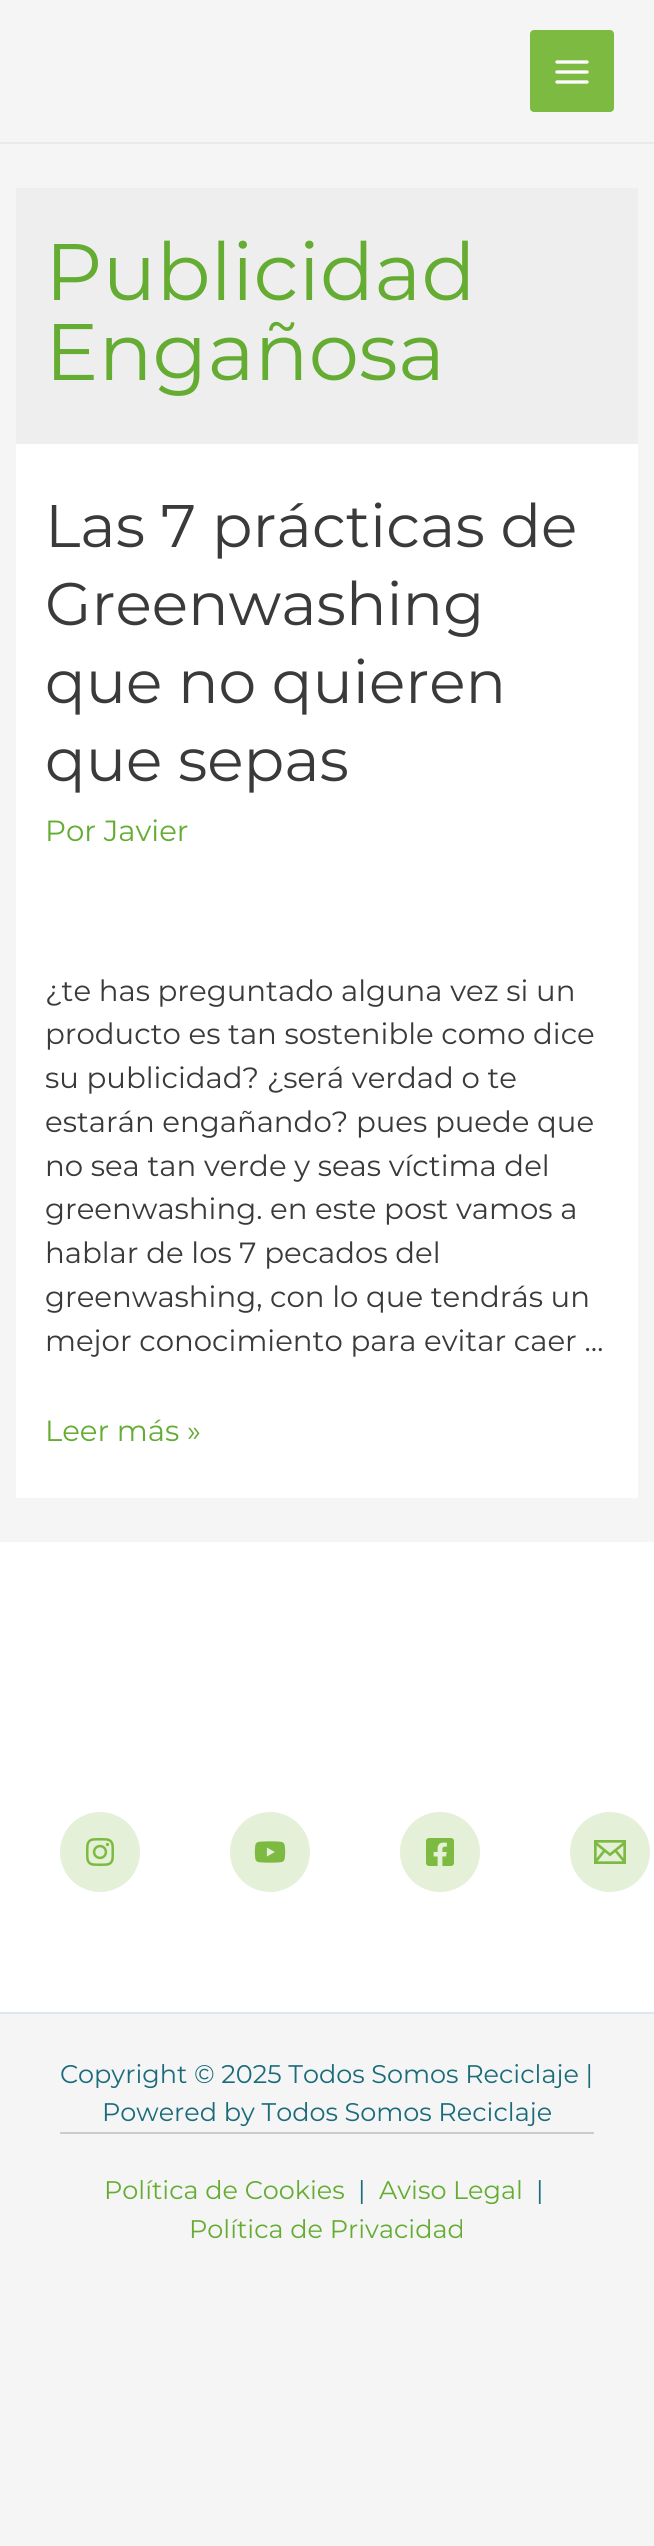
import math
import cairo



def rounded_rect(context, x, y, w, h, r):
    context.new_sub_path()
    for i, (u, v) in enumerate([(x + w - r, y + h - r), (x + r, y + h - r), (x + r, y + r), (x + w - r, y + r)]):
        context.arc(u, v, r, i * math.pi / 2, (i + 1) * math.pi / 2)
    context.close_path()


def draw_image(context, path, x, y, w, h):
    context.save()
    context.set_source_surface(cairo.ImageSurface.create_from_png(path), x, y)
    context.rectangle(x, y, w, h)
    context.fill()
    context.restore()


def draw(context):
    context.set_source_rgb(245 / 255, 245 / 255, 245 / 255)
    context.paint()
    context.set_source_rgb(234 / 255, 234 / 255, 234 / 255)
    context.rectangle(0, 142, 654, 2)
    context.fill()
    context.set_source_rgb(125 / 255, 186 / 255, 65 / 255)
    rounded_rect(context, 530, 30, 84, 82, 4)
    context.fill()
    draw_image(context, "images/1.png", 555, 60, 34, 24)
    context.set_source_rgb(238 / 255, 238 / 255, 238 / 255)
    context.rectangle(16, 188, 622, 256)
    context.fill()
    context.set_source_rgb(1, 1, 1)
    context.rectangle(16, 444, 622, 1054)
    context.fill()
    context.rectangle(0, 1542, 654, 470)
    context.fill()
    context.set_source_rgb(228 / 255, 240 / 255, 215 / 255)
    context.arc(100, 1852, 40, 0, 2 * math.pi)
    context.fill()
    draw_image(context, "images/2.png", 86, 1838, 28, 28)
    context.arc(270, 1852, 40, 0, 2 * math.pi)
    context.fill()
    draw_image(context, "images/3.png", 254, 1841, 32, 22)
    context.arc(440, 1852, 40, 0, 2 * math.pi)
    context.fill()
    draw_image(context, "images/4.png", 426, 1838, 28, 28)
    context.arc(610, 1852, 40, 0, 2 * math.pi)
    context.fill()
    draw_image(context, "images/5.png", 594, 1840, 32, 24)
    context.set_source_rgb(219 / 255, 232 / 255, 235 / 255)
    context.rectangle(0, 2012, 654, 2)
    context.fill()
    context.set_source_rgb(204 / 255, 204 / 255, 204 / 255)
    context.rectangle(60, 2132, 534, 2)
    context.fill()
    context.select_font_face("Montserrat")
    context.set_font_size(80)
    context.set_source_rgb(101 / 255, 172 / 255, 50 / 255)
    context.move_to(45, 300)
    context.show_text("Publicidad")
    context.move_to(45, 380)
    context.show_text("Engañosa")
    context.set_font_size(60)
    context.set_source_rgb(58 / 255, 58 / 255, 58 / 255)
    context.move_to(45, 547)
    context.show_text("Las 7 prácticas de")
    context.move_to(45, 625)
    context.show_text("Greenwashing")
    context.move_to(45, 703)
    context.show_text("que no quieren")
    context.move_to(45, 781)
    context.show_text("que sepas")
    context.set_font_size(29.2)
    context.set_source_rgb(101 / 255, 172 / 255, 50 / 255)
    context.move_to(45, 841)
    context.show_text("Por Javier")
    context.set_source_rgb(58 / 255, 58 / 255, 58 / 255)
    context.move_to(45, 1001)
    context.show_text("¿te has preguntado alguna vez si un")
    context.move_to(45, 1044)
    context.show_text("producto es tan sostenible como dice")
    context.move_to(45, 1088)
    context.show_text("su publicidad? ¿será verdad o te")
    context.move_to(45, 1132)
    context.show_text("estarán engañando? pues puede que")
    context.move_to(45, 1176)
    context.show_text("no sea tan verde y seas víctima del")
    context.move_to(45, 1219)
    context.show_text("greenwashing. en este post vamos a")
    context.move_to(45, 1263)
    context.show_text("hablar de los 7 pecados del")
    context.move_to(45, 1307)
    context.show_text("greenwashing, con lo que tendrás un")
    context.move_to(45, 1351)
    context.show_text("mejor conocimiento para evitar caer …")
    context.set_source_rgb(101 / 255, 172 / 255, 50 / 255)
    context.move_to(45, 1441)
    context.show_text("Leer más »")
    context.set_font_size(25.5)
    context.set_source_rgb(26 / 255, 108 / 255, 122 / 255)
    context.move_to(60, 2083)
    context.show_text("Copyright © 2025 Todos Somos Reciclaje |")
    context.move_to(102, 2121)
    context.show_text("Powered by Todos Somos Reciclaje")
    context.set_source_rgb(101 / 255, 172 / 255, 50 / 255)
    context.move_to(104, 2199)
    context.show_text("Política de Cookies")
    context.set_source_rgb(26 / 255, 108 / 255, 122 / 255)
    context.move_to(358, 2199)
    context.show_text("|")
    context.set_source_rgb(101 / 255, 172 / 255, 50 / 255)
    context.move_to(379, 2199)
    context.show_text("Aviso Legal")
    context.set_source_rgb(26 / 255, 108 / 255, 122 / 255)
    context.move_to(536, 2199)
    context.show_text("|")
    context.set_source_rgb(101 / 255, 172 / 255, 50 / 255)
    context.move_to(189, 2238)
    context.show_text("Política de Privacidad")


surface = cairo.ImageSurface(cairo.Format.RGB24, 654, 2546)
context = cairo.Context(surface)
options = cairo.FontOptions()
options.set_hint_metrics(cairo.HintMetrics.OFF)
options.set_hint_style(cairo.HintStyle.NONE)
context.set_font_options(options)
context.set_miter_limit(4)
draw(context)
surface.write_to_png("out.png")
